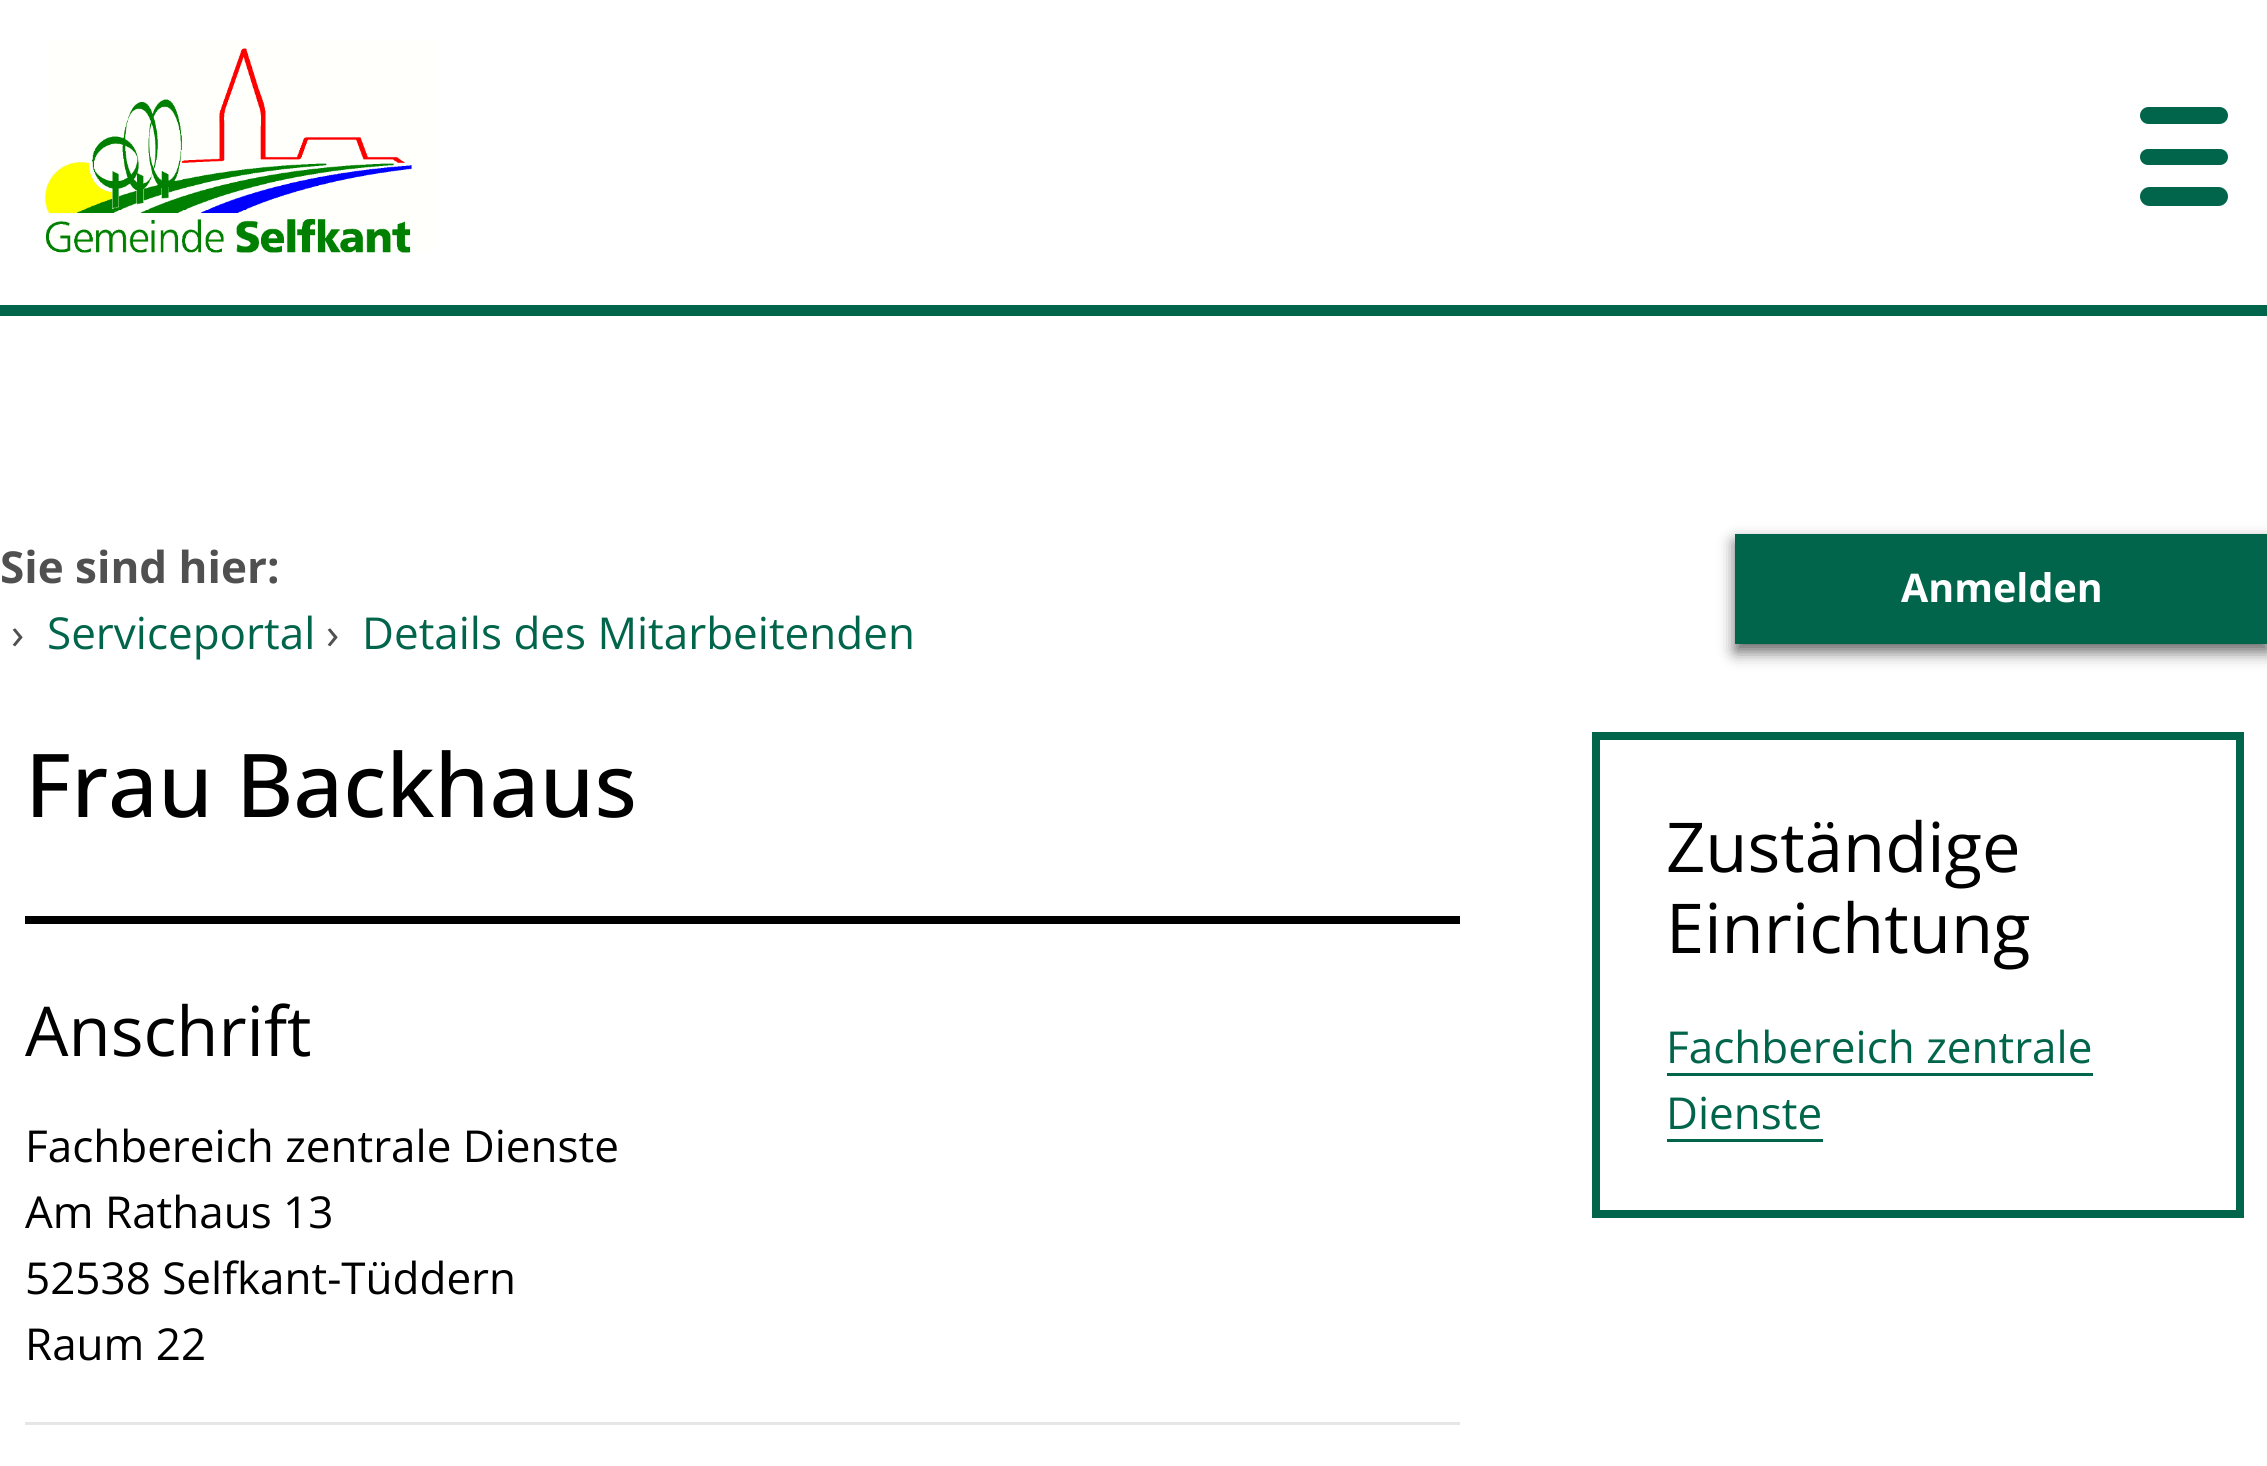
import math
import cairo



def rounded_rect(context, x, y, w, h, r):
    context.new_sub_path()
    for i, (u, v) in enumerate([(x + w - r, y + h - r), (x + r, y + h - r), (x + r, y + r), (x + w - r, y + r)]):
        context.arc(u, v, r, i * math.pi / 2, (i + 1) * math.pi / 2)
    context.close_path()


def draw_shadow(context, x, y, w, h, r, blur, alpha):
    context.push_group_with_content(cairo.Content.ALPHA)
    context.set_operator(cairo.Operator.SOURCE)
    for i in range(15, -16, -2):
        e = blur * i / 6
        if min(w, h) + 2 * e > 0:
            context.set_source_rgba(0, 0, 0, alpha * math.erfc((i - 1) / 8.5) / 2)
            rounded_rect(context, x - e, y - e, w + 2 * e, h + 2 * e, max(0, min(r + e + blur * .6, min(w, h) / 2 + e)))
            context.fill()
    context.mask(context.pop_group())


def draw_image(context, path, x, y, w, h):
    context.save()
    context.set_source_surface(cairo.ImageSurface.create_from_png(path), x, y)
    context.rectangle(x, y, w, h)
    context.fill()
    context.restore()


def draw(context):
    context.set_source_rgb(1, 1, 1)
    context.paint()
    context.set_source_rgb(0, 101 / 255, 74 / 255)
    context.rectangle(0, 305, 2267, 11)
    context.fill()
    draw_image(context, "images/1.png", 45, 41, 390, 212)
    rounded_rect(context, 2140, 107, 88, 17, 8.5)
    context.fill()
    rounded_rect(context, 2140, 149, 88, 16, 8)
    context.fill()
    rounded_rect(context, 2140, 187, 88, 19, 9.5)
    context.fill()
    context.set_source_rgb(0, 0, 0)
    draw_shadow(context, 1735, 542, 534, 110, 0, 8, 0.6)
    context.set_source_rgb(0, 101 / 255, 74 / 255)
    context.rectangle(1735, 534, 532, 110)
    context.fill()
    context.set_source_rgb(0, 0, 0)
    context.rectangle(25, 916, 1435, 8)
    context.fill()
    context.set_source_rgb(230 / 255, 230 / 255, 230 / 255)
    context.rectangle(25, 1422, 1435, 3)
    context.fill()
    context.rectangle(1596, 736, 644, 478)
    context.set_source_rgb(0, 101 / 255, 74 / 255)
    context.set_line_width(8)
    context.stroke()
    context.rectangle(1667, 1073, 426, 3)
    context.fill()
    context.rectangle(1667, 1139, 156, 3)
    context.fill()
    context.select_font_face("Open Sans", cairo.FontSlant.NORMAL, cairo.FontWeight.BOLD)
    context.set_font_size(44)
    context.set_source_rgb(80 / 255, 80 / 255, 80 / 255)
    context.move_to(0, 583)
    context.show_text("Sie sind hier:")
    context.select_font_face("Open Sans")
    context.move_to(11, 649)
    context.show_text("›")
    context.set_source_rgb(0, 101 / 255, 74 / 255)
    context.move_to(47, 649)
    context.show_text("Serviceportal")
    context.set_source_rgb(80 / 255, 80 / 255, 80 / 255)
    context.move_to(326, 649)
    context.show_text("›")
    context.set_source_rgb(0, 101 / 255, 74 / 255)
    context.move_to(362, 649)
    context.show_text("Details des Mitarbeitenden")
    context.select_font_face("Open Sans", cairo.FontSlant.NORMAL, cairo.FontWeight.BOLD)
    context.set_font_size(39.5)
    context.set_source_rgb(1, 1, 1)
    context.move_to(1901, 602)
    context.show_text("Anmelden")
    context.select_font_face("Open Sans Medium")
    context.set_font_size(88)
    context.set_source_rgb(0, 0, 0)
    context.move_to(25, 817)
    context.show_text("Frau Backhaus")
    context.select_font_face("Open Sans")
    context.set_font_size(68.75)
    context.move_to(25, 1056)
    context.show_text("Anschrift")
    context.set_font_size(44)
    context.move_to(25, 1162)
    context.show_text("Fachbereich zentrale Dienste")
    context.move_to(25, 1228)
    context.show_text("Am Rathaus 13")
    context.move_to(25, 1294)
    context.show_text("52538 Selfkant-Tüddern")
    context.move_to(25, 1360)
    context.show_text("Raum 22")
    context.set_font_size(68.75)
    context.move_to(1666, 872)
    context.show_text("Zuständige")
    context.move_to(1666, 953)
    context.show_text("Einrichtung")
    context.set_font_size(44)
    context.set_source_rgb(0, 101 / 255, 74 / 255)
    context.move_to(1666, 1063)
    context.show_text("Fachbereich zentrale")
    context.move_to(1666, 1129)
    context.show_text("Dienste")


surface = cairo.ImageSurface(cairo.Format.RGB24, 2267, 1466)
context = cairo.Context(surface)
options = cairo.FontOptions()
options.set_hint_metrics(cairo.HintMetrics.OFF)
options.set_hint_style(cairo.HintStyle.NONE)
context.set_font_options(options)
context.set_miter_limit(4)
draw(context)
surface.write_to_png("out.png")
